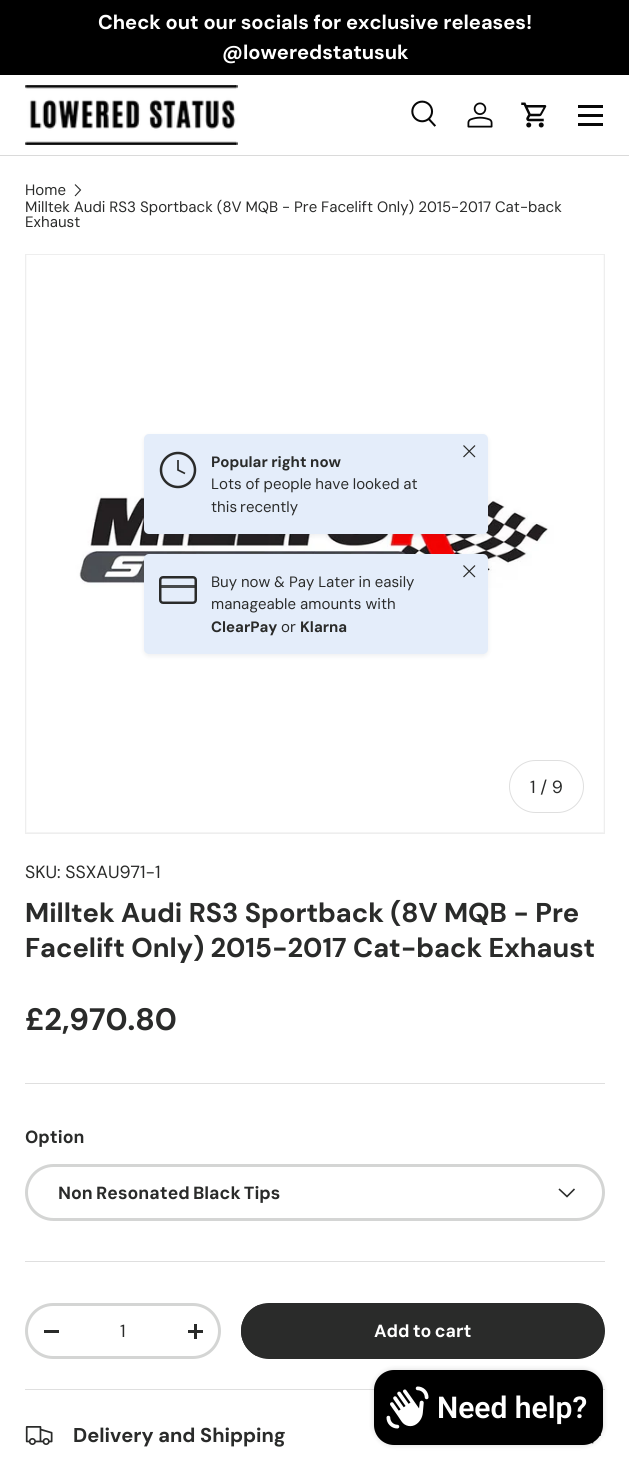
import math
import cairo



def draw_spaced(context, x, y, s, letter, word):
    context.move_to(x, y)
    for ch in s:
        context.show_text(ch)
        context.rel_move_to(letter + word * (ch == ' '), 0)


def rounded_rect(context, x, y, w, h, r):
    context.new_sub_path()
    for i, (u, v) in enumerate([(x + w - r, y + h - r), (x + r, y + h - r), (x + r, y + r), (x + w - r, y + r)]):
        context.arc(u, v, r, i * math.pi / 2, (i + 1) * math.pi / 2)
    context.close_path()


def draw_shadow(context, x, y, w, h, r, blur, alpha):
    context.push_group_with_content(cairo.Content.ALPHA)
    context.set_operator(cairo.Operator.SOURCE)
    for i in range(15, -16, -2):
        e = blur * i / 6
        if min(w, h) + 2 * e > 0:
            context.set_source_rgba(0, 0, 0, alpha * math.erfc((i - 1) / 8.5) / 2)
            rounded_rect(context, x - e, y - e, w + 2 * e, h + 2 * e, max(0, min(r + e + blur * .6, min(w, h) / 2 + e)))
            context.fill()
    context.mask(context.pop_group())


def draw_image(context, path, x, y, w, h):
    context.save()
    context.set_source_surface(cairo.ImageSurface.create_from_png(path), x, y)
    context.rectangle(x, y, w, h)
    context.fill()
    context.restore()


def draw(context):
    context.set_source_rgb(1, 1, 1)
    context.paint()
    context.set_source_rgb(0, 0, 0)
    context.rectangle(0, 0, 629, 75)
    context.fill()
    context.set_source_rgb(218 / 255, 218 / 255, 218 / 255)
    context.rectangle(0, 155, 629, 1)
    context.fill()
    draw_image(context, "images/1.png", 25, 85, 213, 60)
    draw_image(context, "images/2.png", 411, 100, 25, 27)
    draw_image(context, "images/3.png", 467, 102, 26, 26)
    draw_image(context, "images/4.png", 521, 102, 26, 26)
    context.set_source_rgb(7 / 255, 7 / 255, 7 / 255)
    context.rectangle(578, 105, 25, 3)
    context.fill()
    context.rectangle(578, 123, 25, 3)
    context.fill()
    context.rectangle(578, 114, 25, 3)
    context.fill()
    context.new_path()
    context.move_to(75, 184.5)
    context.line_to(80.5, 190)
    context.line_to(75, 196)
    context.set_source_rgb(42 / 255, 43 / 255, 42 / 255)
    context.set_line_width(1.1)
    context.stroke()
    context.set_source_rgb(244 / 255, 244 / 255, 244 / 255)
    context.rectangle(25.5, 254.5, 579, 579)
    context.fill_preserve()
    context.set_source_rgb(238 / 255, 238 / 255, 238 / 255)
    context.set_line_width(1)
    context.stroke()
    draw_image(context, "images/5.png", 26, 255, 578, 577)
    context.set_source_rgb(33 / 255, 43 / 255, 54 / 255)
    draw_shadow(context, 144, 436, 344, 100, 5, 2.5, 0.08)
    context.set_source_rgb(228 / 255, 237 / 255, 250 / 255)
    rounded_rect(context, 144, 434, 344, 100, 5)
    context.fill()
    context.arc(178, 470, 17, 0, 2 * math.pi)
    context.set_source_rgb(42 / 255, 43 / 255, 42 / 255)
    context.set_line_width(2.5)
    context.stroke()
    context.new_path()
    context.move_to(178, 460)
    context.line_to(178, 470)
    context.line_to(185, 473.5)
    context.set_line_width(1.7)
    context.stroke()
    context.new_path()
    context.move_to(463.5, 457)
    context.line_to(475, 445.5)
    context.move_to(463.5, 445.5)
    context.line_to(475, 457)
    context.set_line_width(1.2)
    context.set_line_join(cairo.LineJoin.ROUND)
    context.stroke()
    context.set_source_rgb(33 / 255, 43 / 255, 54 / 255)
    draw_shadow(context, 144, 556, 344, 100, 5, 2.5, 0.08)
    context.set_source_rgb(228 / 255, 237 / 255, 250 / 255)
    rounded_rect(context, 144, 554, 344, 100, 5)
    context.fill()
    context.new_path()
    context.move_to(463.5, 577)
    context.line_to(475, 565.5)
    context.move_to(463.5, 565.5)
    context.line_to(475, 577)
    context.set_source_rgb(42 / 255, 43 / 255, 42 / 255)
    context.stroke()
    rounded_rect(context, 160.25, 577.25, 35.5, 25.5, 2.75)
    context.set_line_width(2.5)
    context.set_line_join(cairo.LineJoin.MITER)
    context.stroke()
    context.set_source_rgba(42 / 255, 43 / 255, 42 / 255, 0.83)
    context.rectangle(161, 585, 35, 3)
    context.fill()
    rounded_rect(context, 509.5, 760.5, 74, 52, 26)
    context.set_source_rgb(223 / 255, 223 / 255, 223 / 255)
    context.set_line_width(1)
    context.stroke()
    context.rectangle(25, 1083, 580, 1)
    context.fill()
    rounded_rect(context, 26.5, 1165.5, 577, 54, 27)
    context.set_source_rgb(212 / 255, 213 / 255, 212 / 255)
    context.set_line_width(3)
    context.stroke()
    context.new_path()
    context.move_to(574.5, 1189)
    context.line_to(567, 1196.5)
    context.line_to(559, 1189)
    context.set_source_rgb(42 / 255, 43 / 255, 42 / 255)
    context.set_line_width(1.6)
    context.stroke()
    context.set_source_rgb(223 / 255, 223 / 255, 223 / 255)
    context.rectangle(25, 1261, 580, 1)
    context.fill()
    rounded_rect(context, 26.5, 1304.5, 193, 53, 26.5)
    context.set_source_rgb(212 / 255, 213 / 255, 212 / 255)
    context.set_line_width(3)
    context.stroke()
    context.set_source_rgb(42 / 255, 43 / 255, 42 / 255)
    context.rectangle(44, 1330, 15, 3)
    context.fill()
    context.rectangle(188, 1330, 15, 3)
    context.fill()
    context.rectangle(194, 1324, 3, 15)
    context.fill()
    context.save()
    rounded_rect(context, 241, 1303, 364, 56, 28)
    context.clip()
    gradient = cairo.LinearGradient(-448, 1203, 577, 1458)
    gradient.add_color_stop_rgba(0.6, 82 / 255, 83 / 255, 82 / 255, 1)
    gradient.add_color_stop_rgba(0.6, 42 / 255, 43 / 255, 42 / 255, 1)
    gradient.add_color_stop_rgba(1, 42 / 255, 43 / 255, 42 / 255, 1)
    context.set_source(gradient)
    context.rectangle(241, 1305, 362, 51)
    context.fill()
    context.restore()
    rounded_rect(context, 242.5, 1304.5, 361, 53, 26.5)
    context.stroke()
    context.set_source_rgb(223 / 255, 223 / 255, 223 / 255)
    context.rectangle(25, 1389, 580, 1)
    context.fill()
    draw_image(context, "images/6.png", 25, 1426, 28, 19)
    draw_image(context, "images/7.png", 591, 1434, 10, 10)
    context.set_source_rgb(0, 0, 0)
    draw_shadow(context, 374, 1370, 229, 75, 20, 3, 0.15)
    context.set_source_rgb(0, 0, 0)
    rounded_rect(context, 374, 1370, 229, 75, 20)
    context.fill()
    draw_image(context, "images/8.png", 386, 1386, 43, 43)
    context.select_font_face("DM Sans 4", cairo.FontSlant.NORMAL, cairo.FontWeight.BOLD)
    context.set_font_size(20)
    context.set_source_rgb(1, 1, 1)
    context.move_to(98, 29)
    context.show_text("Check out our socials for exclusive releases!")
    context.move_to(222, 59)
    context.show_text("@loweredstatusuk")
    context.select_font_face("DM Sans")
    context.set_font_size(15)
    context.set_source_rgb(42 / 255, 43 / 255, 42 / 255)
    context.move_to(25, 195)
    context.show_text("Home")
    draw_spaced(context, 25, 212, "Milltek Audi RS3 Sportback (8V MQB - Pre Facelift Only) 2015-2017 Cat-back", 0, -0.1)
    context.move_to(25, 227)
    context.show_text("Exhaust")
    context.select_font_face("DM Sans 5", cairo.FontSlant.NORMAL, cairo.FontWeight.BOLD)
    context.move_to(211, 467)
    context.show_text("Popular right now")
    context.select_font_face("DM Sans")
    draw_spaced(context, 211, 489, "Lots of people have looked at", 0, -0.25)
    draw_spaced(context, 211, 512, "this recently", 0, -1)
    draw_spaced(context, 211, 587, "Buy now & Pay Later in easily", 0, -0.25)
    context.move_to(211, 609)
    context.show_text("manageable amounts with")
    context.select_font_face("DM Sans 5", cairo.FontSlant.NORMAL, cairo.FontWeight.BOLD)
    context.move_to(211, 632)
    context.show_text("ClearPay")
    context.select_font_face("DM Sans")
    context.move_to(281, 632)
    context.show_text("or")
    context.select_font_face("DM Sans 5", cairo.FontSlant.NORMAL, cairo.FontWeight.BOLD)
    context.move_to(300, 632)
    context.show_text("Klarna")
    context.select_font_face("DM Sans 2")
    context.set_font_size(17.6)
    context.move_to(530, 793)
    context.show_text("1 / 9")
    context.move_to(25, 878)
    context.show_text("SKU: SSXAU971-1")
    context.select_font_face("DM Sans", cairo.FontSlant.NORMAL, cairo.FontWeight.BOLD)
    context.set_font_size(27.2)
    context.move_to(25, 922)
    context.show_text("Milltek Audi RS3 Sportback (8V MQB - Pre")
    context.move_to(25, 957)
    context.show_text("Facelift Only) 2015-2017 Cat-back Exhaust")
    context.select_font_face("DM Sans 2", cairo.FontSlant.NORMAL, cairo.FontWeight.BOLD)
    context.set_font_size(31)
    context.move_to(25, 1030)
    context.show_text("£2,970.80")
    context.select_font_face("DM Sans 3", cairo.FontSlant.NORMAL, cairo.FontWeight.BOLD)
    context.set_font_size(17.6)
    context.move_to(25, 1143)
    context.show_text("Option")
    draw_spaced(context, 58, 1199, "Non Resonated Black Tips", 0, -1)
    context.select_font_face("DM Sans 2")
    context.move_to(120, 1337)
    context.show_text("1")
    context.select_font_face("DM Sans 3", cairo.FontSlant.NORMAL, cairo.FontWeight.BOLD)
    context.set_source_rgb(1, 1, 1)
    draw_spaced(context, 374, 1337, "Add to cart", 0, -1)
    context.select_font_face("DM Sans 4", cairo.FontSlant.NORMAL, cairo.FontWeight.BOLD)
    context.set_font_size(20)
    context.set_source_rgb(42 / 255, 43 / 255, 42 / 255)
    context.move_to(73, 1442)
    context.show_text("Delivery and Shipping")
    context.select_font_face("Roboto SemiBold")
    context.set_font_size(30)
    context.set_source_rgb(1, 1, 1)
    context.move_to(437, 1418)
    context.show_text("Need help?")


surface = cairo.ImageSurface(cairo.Format.RGB24, 629, 1471)
context = cairo.Context(surface)
options = cairo.FontOptions()
options.set_hint_metrics(cairo.HintMetrics.OFF)
options.set_hint_style(cairo.HintStyle.NONE)
context.set_font_options(options)
context.set_miter_limit(4)
draw(context)
surface.write_to_png("out.png")
